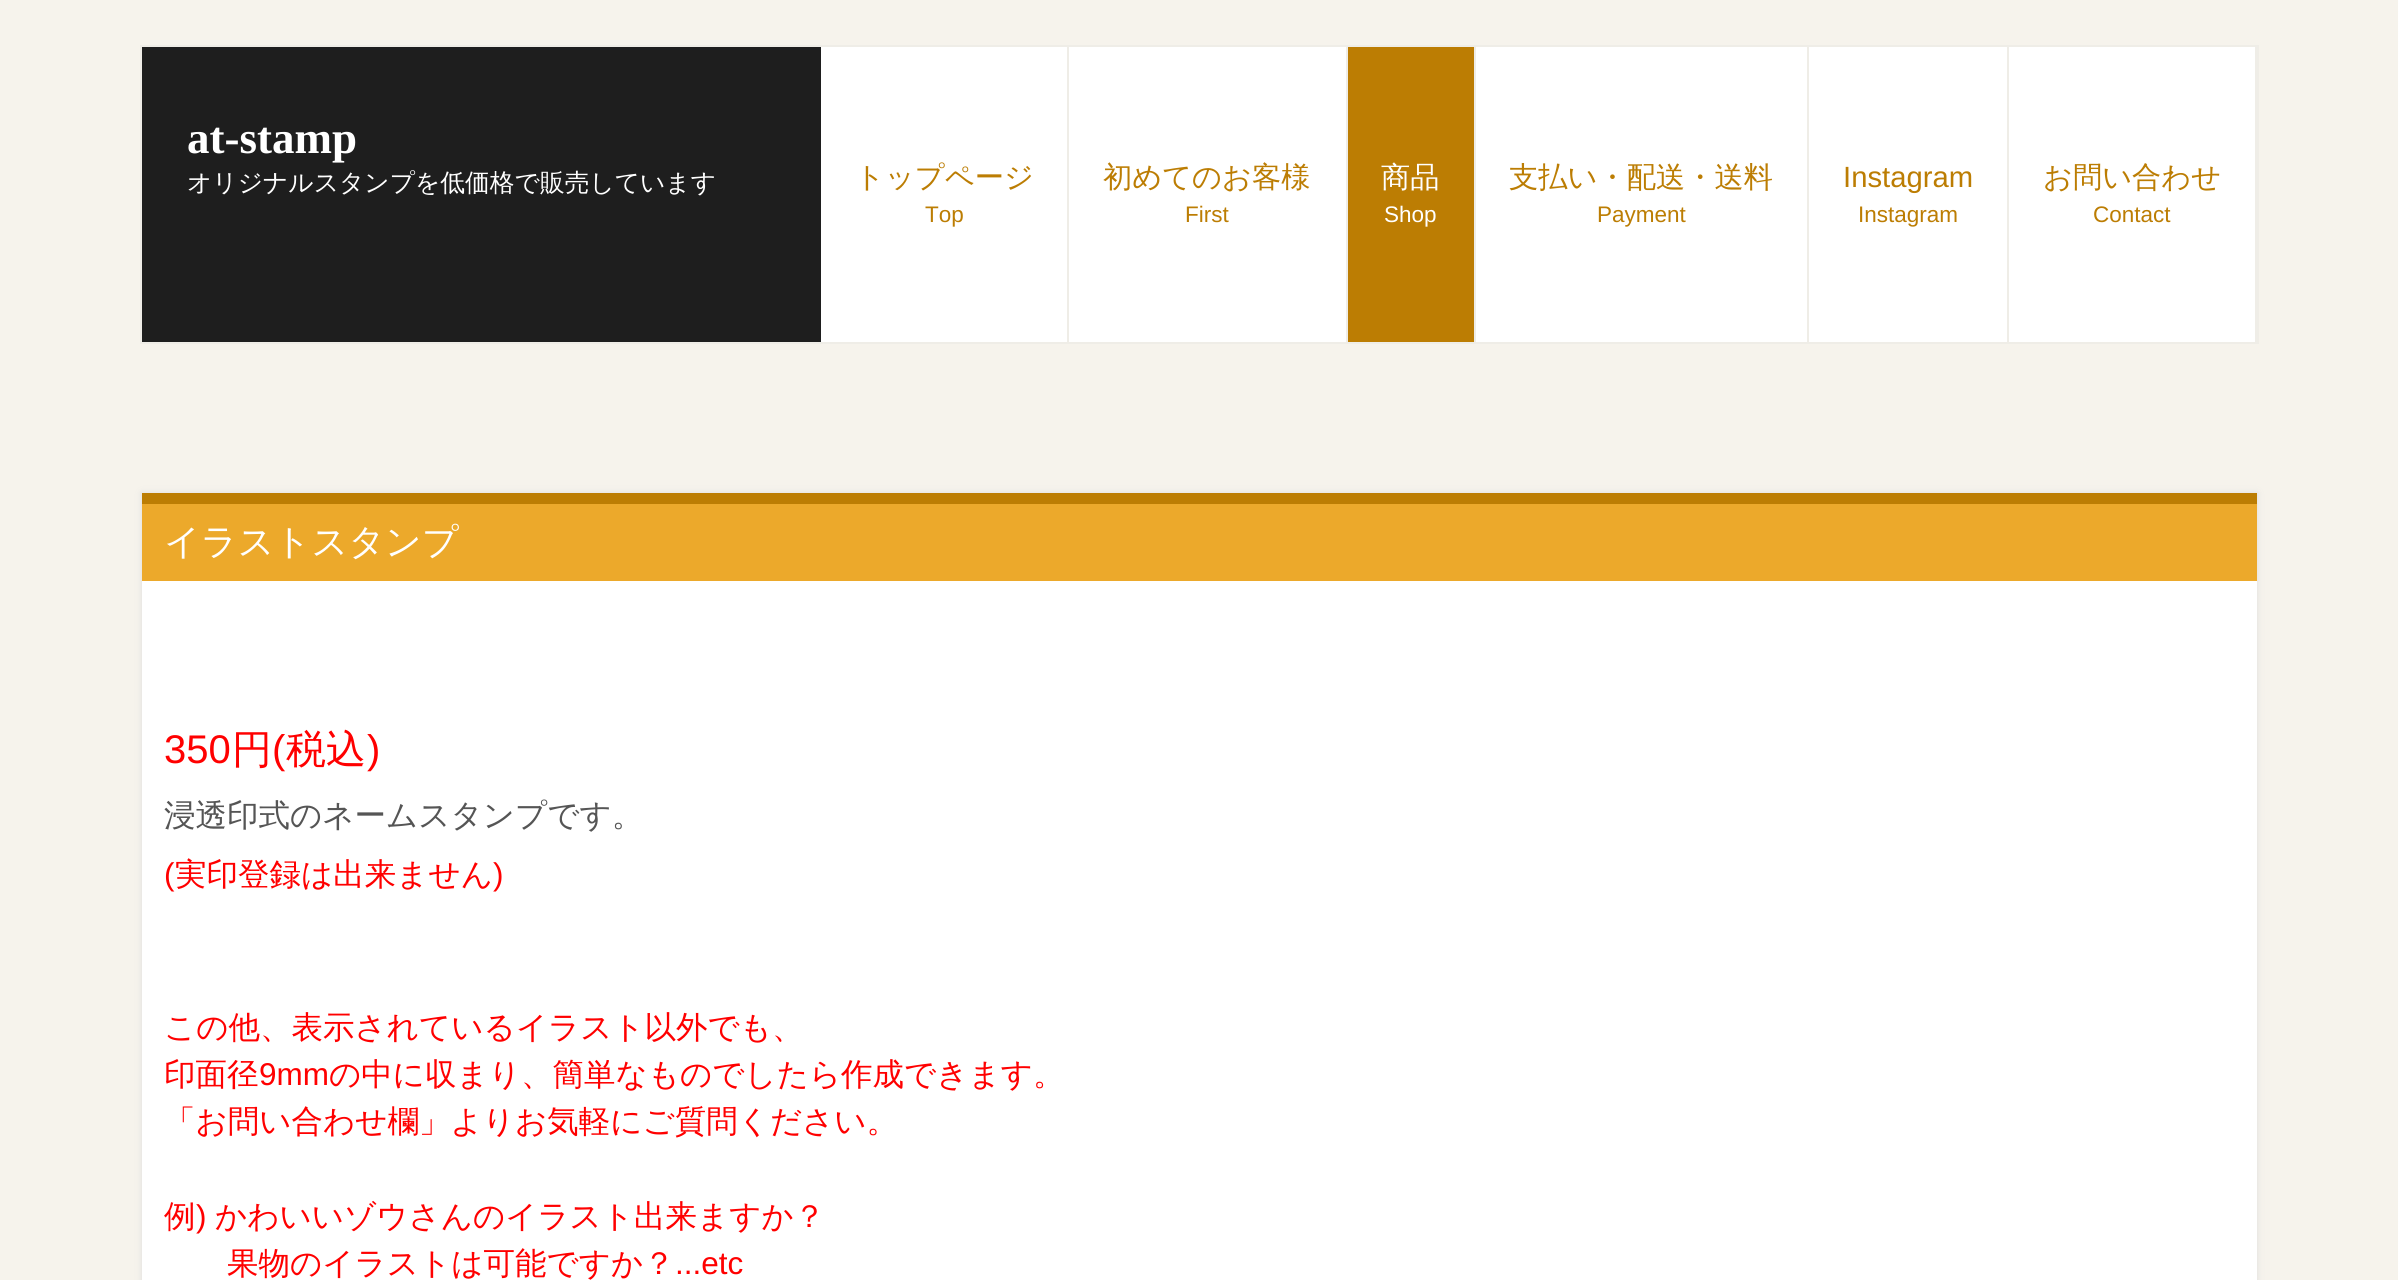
import math
import cairo



def rounded_rect(context, x, y, w, h, r):
    context.new_sub_path()
    for i, (u, v) in enumerate([(x + w - r, y + h - r), (x + r, y + h - r), (x + r, y + r), (x + w - r, y + r)]):
        context.arc(u, v, r, i * math.pi / 2, (i + 1) * math.pi / 2)
    context.close_path()


def draw_shadow(context, x, y, w, h, r, blur, alpha):
    context.push_group_with_content(cairo.Content.ALPHA)
    context.set_operator(cairo.Operator.SOURCE)
    for i in range(15, -16, -2):
        e = blur * i / 6
        if min(w, h) + 2 * e > 0:
            context.set_source_rgba(0, 0, 0, alpha * math.erfc((i - 1) / 8.5) / 2)
            rounded_rect(context, x - e, y - e, w + 2 * e, h + 2 * e, max(0, min(r + e + blur * .6, min(w, h) / 2 + e)))
            context.fill()
    context.mask(context.pop_group())


def draw(context):
    context.set_source_rgb(246 / 255, 243 / 255, 236 / 255)
    context.paint()
    context.set_source_rgb(30 / 255, 30 / 255, 30 / 255)
    context.rectangle(142, 47, 679, 295)
    context.fill()
    context.rectangle(141, 46, 2117, 297)
    context.set_source_rgb(239 / 255, 237 / 255, 231 / 255)
    context.stroke()
    context.rectangle(1067, 47, 2, 295)
    context.fill()
    context.set_source_rgb(1, 1, 1)
    context.rectangle(821, 47, 246, 295)
    context.fill()
    context.set_source_rgb(239 / 255, 237 / 255, 231 / 255)
    context.rectangle(1346, 47, 2, 295)
    context.fill()
    context.set_source_rgb(1, 1, 1)
    context.rectangle(1069, 47, 277, 295)
    context.fill()
    context.set_source_rgb(239 / 255, 237 / 255, 231 / 255)
    context.rectangle(1474, 47, 2, 295)
    context.fill()
    context.set_source_rgb(188 / 255, 125 / 255, 3 / 255)
    context.rectangle(1348, 47, 126, 295)
    context.fill()
    context.set_source_rgb(239 / 255, 237 / 255, 231 / 255)
    context.rectangle(1807, 47, 2, 295)
    context.fill()
    context.set_source_rgb(1, 1, 1)
    context.rectangle(1476, 47, 331, 295)
    context.fill()
    context.set_source_rgb(239 / 255, 237 / 255, 231 / 255)
    context.rectangle(2007, 47, 2, 295)
    context.fill()
    context.set_source_rgb(1, 1, 1)
    context.rectangle(1809, 47, 198, 295)
    context.fill()
    context.set_source_rgb(239 / 255, 237 / 255, 231 / 255)
    context.rectangle(2255, 47, 2, 295)
    context.fill()
    context.set_source_rgb(1, 1, 1)
    context.rectangle(2009, 47, 246, 295)
    context.fill()
    context.set_source_rgb(221 / 255, 221 / 255, 221 / 255)
    draw_shadow(context, 142, 493, 2115, 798, 0, 3.5, 1)
    context.set_source_rgb(1, 1, 1)
    context.rectangle(142, 581, 2115, 699)
    context.fill()
    context.set_source_rgb(236 / 255, 169 / 255, 43 / 255)
    context.rectangle(142, 504, 2115, 77)
    context.fill()
    context.set_source_rgb(188 / 255, 125 / 255, 3 / 255)
    context.rectangle(142, 493, 2115, 11)
    context.fill()
    context.select_font_face("Liberation Serif", cairo.FontSlant.NORMAL, cairo.FontWeight.BOLD)
    context.set_font_size(45)
    context.set_source_rgb(1, 1, 1)
    context.move_to(187, 153)
    context.show_text("at-stamp")
    context.select_font_face("WenQuanYi Zen Hei Medium")
    context.set_font_size(24.75)
    context.move_to(187, 191)
    context.show_text("オリジナルスタンプを低価格で販売しています")
    context.set_font_size(29.25)
    context.set_source_rgb(188 / 255, 125 / 255, 3 / 255)
    context.move_to(855, 187)
    context.show_text("トップページ")
    context.select_font_face("Liberation Sans")
    context.set_font_size(22.5)
    context.move_to(925, 222)
    context.show_text("Top")
    context.select_font_face("WenQuanYi Zen Hei Medium")
    context.set_font_size(29.25)
    context.move_to(1103, 187)
    context.show_text("初めてのお客様")
    context.select_font_face("Liberation Sans")
    context.set_font_size(22.5)
    context.move_to(1185, 222)
    context.show_text("First")
    context.select_font_face("WenQuanYi Zen Hei Medium")
    context.set_font_size(29.25)
    context.set_source_rgb(1, 1, 1)
    context.move_to(1381, 187)
    context.show_text("商品")
    context.select_font_face("Liberation Sans")
    context.set_font_size(22.5)
    context.move_to(1384, 222)
    context.show_text("Shop")
    context.select_font_face("WenQuanYi Zen Hei Medium")
    context.set_font_size(29.25)
    context.set_source_rgb(188 / 255, 125 / 255, 3 / 255)
    context.move_to(1509, 187)
    context.show_text("支払い・配送・送料")
    context.select_font_face("Liberation Sans")
    context.set_font_size(22.5)
    context.move_to(1597, 222)
    context.show_text("Payment")
    context.set_font_size(29.25)
    context.move_to(1843, 187)
    context.show_text("Instagram")
    context.set_font_size(22.5)
    context.move_to(1858, 222)
    context.show_text("Instagram")
    context.select_font_face("WenQuanYi Zen Hei Medium")
    context.set_font_size(29.25)
    context.move_to(2043, 187)
    context.show_text("お問い合わせ")
    context.select_font_face("Liberation Sans")
    context.set_font_size(22.5)
    context.move_to(2093, 222)
    context.show_text("Contact")
    context.select_font_face("WenQuanYi Zen Hei Medium")
    context.set_font_size(36)
    context.set_source_rgb(1, 1, 1)
    context.move_to(164, 554)
    context.show_text("イラストスタンプ")
    context.select_font_face("Liberation Sans")
    context.set_font_size(40)
    context.set_source_rgb(1, 0, 0)
    context.move_to(164, 763)
    context.show_text("350")
    context.select_font_face("WenQuanYi Zen Hei Medium")
    context.move_to(232, 763)
    context.show_text("円")
    context.select_font_face("Liberation Sans")
    context.move_to(272, 763)
    context.show_text("(")
    context.select_font_face("WenQuanYi Zen Hei Medium")
    context.move_to(286, 763)
    context.show_text("税込")
    context.select_font_face("Liberation Sans")
    context.move_to(367, 763)
    context.show_text(")")
    context.select_font_face("WenQuanYi Zen Hei Medium")
    context.set_font_size(31.5)
    context.set_source_rgb(85 / 255, 85 / 255, 85 / 255)
    context.move_to(164, 826)
    context.show_text("浸透印式のネームスタンプです。")
    context.select_font_face("Liberation Sans")
    context.set_source_rgb(1, 0, 0)
    context.move_to(164, 885)
    context.show_text("(")
    context.select_font_face("WenQuanYi Zen Hei Medium")
    context.move_to(175, 885)
    context.show_text("実印登録は出来ません")
    context.select_font_face("Liberation Sans")
    context.move_to(493, 885)
    context.show_text(")")
    context.select_font_face("WenQuanYi Zen Hei Medium")
    context.move_to(164, 1038)
    context.show_text("この他、表示されているイラスト以外でも、")
    context.move_to(164, 1085)
    context.show_text("印面径")
    context.select_font_face("Liberation Sans")
    context.move_to(259, 1085)
    context.show_text("9mm")
    context.select_font_face("WenQuanYi Zen Hei Medium")
    context.move_to(329, 1085)
    context.show_text("の中に収まり、簡単なものでしたら作成できます。")
    context.move_to(164, 1132)
    context.show_text("「お問い合わせ欄」よりお気軽にご質問ください。")
    context.move_to(164, 1227)
    context.show_text("例")
    context.select_font_face("Liberation Sans")
    context.move_to(196, 1227)
    context.show_text(")")
    context.select_font_face("WenQuanYi Zen Hei Medium")
    context.move_to(215, 1227)
    context.show_text("かわいいゾウさんのイラスト出来ますか？")
    context.move_to(227, 1274)
    context.show_text("果物のイラストは可能ですか？")
    context.select_font_face("Liberation Sans")
    context.move_to(675, 1274)
    context.show_text("...etc")


surface = cairo.ImageSurface(cairo.Format.RGB24, 2398, 1280)
context = cairo.Context(surface)
options = cairo.FontOptions()
options.set_hint_metrics(cairo.HintMetrics.OFF)
options.set_hint_style(cairo.HintStyle.NONE)
context.set_font_options(options)
context.set_miter_limit(4)
draw(context)
surface.write_to_png("out.png")
